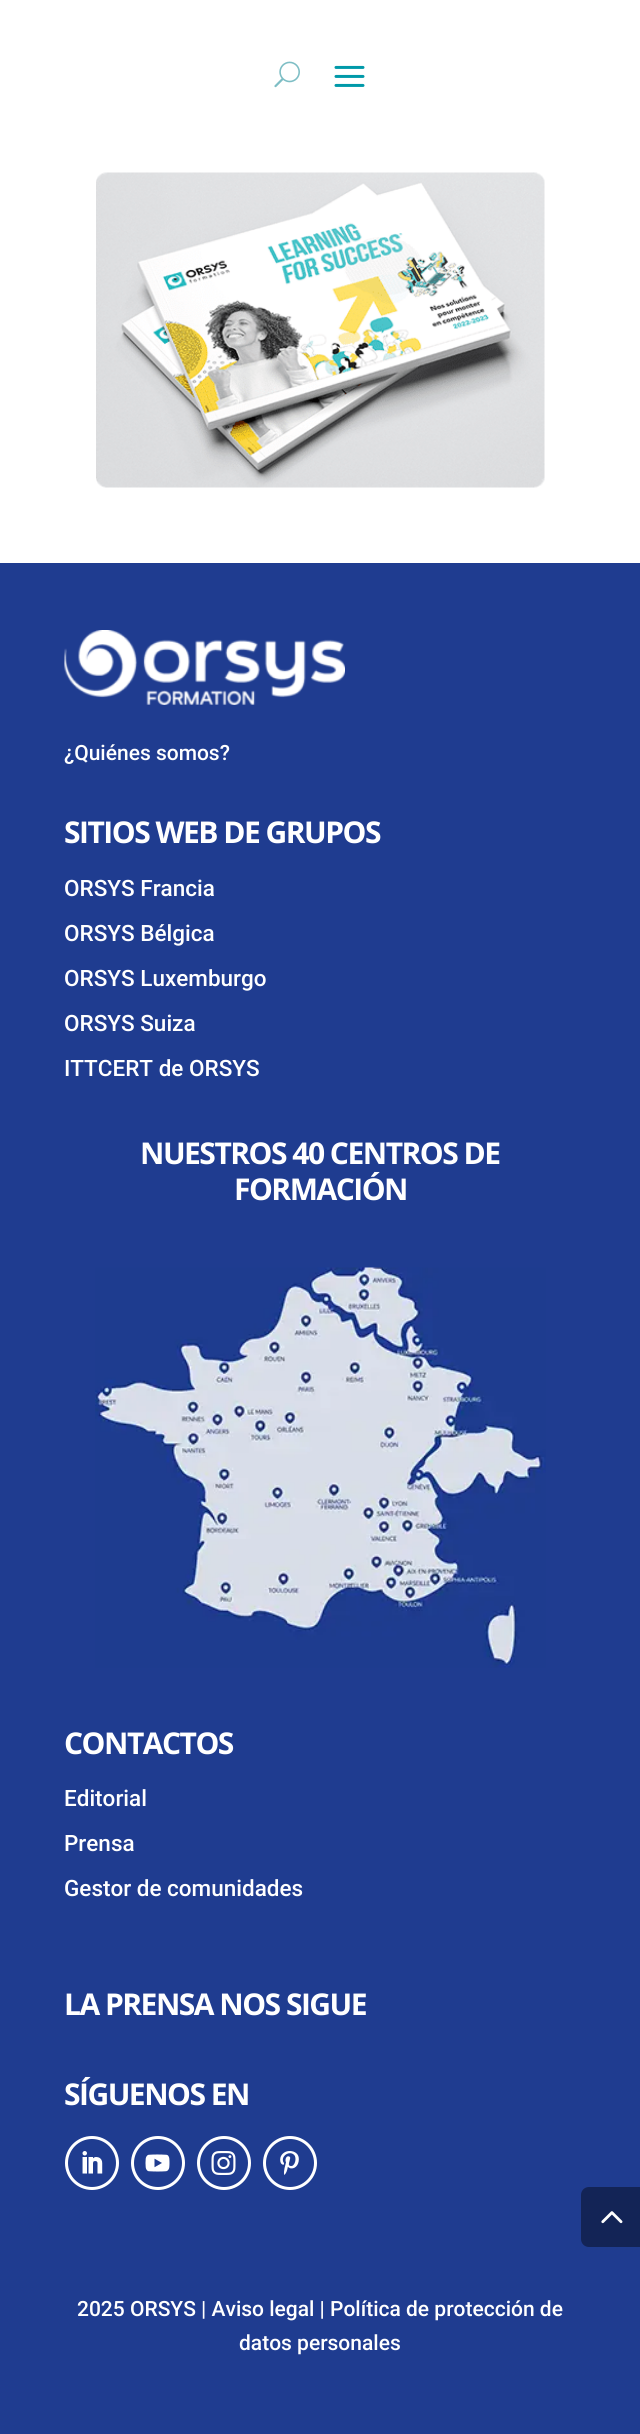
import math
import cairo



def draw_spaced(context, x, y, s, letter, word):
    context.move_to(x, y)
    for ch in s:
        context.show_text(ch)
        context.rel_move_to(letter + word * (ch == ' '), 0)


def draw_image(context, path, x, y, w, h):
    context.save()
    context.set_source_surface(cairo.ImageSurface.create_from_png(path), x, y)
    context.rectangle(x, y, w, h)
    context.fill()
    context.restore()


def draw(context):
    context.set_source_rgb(1, 1, 1)
    context.paint()
    draw_image(context, "images/1.png", 274, 61, 26, 27)
    draw_image(context, "images/2.png", 334, 65, 31, 22)
    draw_image(context, "images/3.png", 96, 172, 449, 316)
    context.set_source_rgb(31 / 255, 60 / 255, 144 / 255)
    context.rectangle(0, 563, 640, 1871)
    context.fill()
    draw_image(context, "images/4.png", 64, 630, 281, 75)
    draw_image(context, "images/5.png", 95, 1267, 451, 401)
    context.arc(92, 2163, 25.5, 0, 2 * math.pi)
    context.set_source_rgb(1, 1, 1)
    context.set_line_width(3)
    context.stroke()
    draw_image(context, "images/6.png", 82, 2151, 21, 23)
    context.arc(158, 2163, 25.5, 0, 2 * math.pi)
    context.stroke()
    draw_image(context, "images/7.png", 145, 2154, 25, 18)
    context.arc(224, 2163, 25.5, 0, 2 * math.pi)
    context.stroke()
    draw_image(context, "images/8.png", 211, 2151, 25, 24)
    context.arc(290, 2163, 25.5, 0, 2 * math.pi)
    context.stroke()
    draw_image(context, "images/9.png", 280, 2151, 19, 24)
    context.set_source_rgb(19 / 255, 36 / 255, 86 / 255)
    context.new_path()
    context.move_to(589, 2187)
    context.line_to(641, 2187)
    context.line_to(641, 2247)
    context.line_to(589, 2247)
    context.curve_to(584.5, 2247, 581, 2243.5, 581, 2239)
    context.line_to(581, 2195)
    context.curve_to(581, 2190.5, 584.5, 2187, 589, 2187)
    context.close_path()
    context.fill()
    draw_image(context, "images/10.png", 601, 2211, 22, 13)
    context.select_font_face("Roboto Medium")
    context.set_font_size(21)
    context.set_source_rgb(1, 1, 1)
    context.move_to(64, 760)
    context.show_text("¿Quiénes somos?")
    context.select_font_face("Open Sans", cairo.FontSlant.NORMAL, cairo.FontWeight.BOLD)
    context.set_font_size(30)
    draw_spaced(context, 64, 843, "SITIOS WEB DE GRUPOS", -1.5, 0)
    context.select_font_face("Roboto Medium")
    context.set_font_size(22.5)
    context.move_to(64, 896)
    context.show_text("ORSYS Francia")
    context.move_to(64, 941)
    context.show_text("ORSYS Bélgica")
    context.move_to(64, 986)
    context.show_text("ORSYS Luxemburgo")
    context.move_to(64, 1031)
    context.show_text("ORSYS Suiza")
    context.move_to(64, 1076)
    context.show_text("ITTCERT de ORSYS")
    context.select_font_face("Open Sans", cairo.FontSlant.NORMAL, cairo.FontWeight.BOLD)
    context.set_font_size(30)
    draw_spaced(context, 140, 1164, "NUESTROS 40 CENTROS DE", -1.5, 0)
    draw_spaced(context, 234, 1200, "FORMACIÓN", -1.5, 0)
    draw_spaced(context, 64, 1754, "CONTACTOS", -1.5, 0)
    context.select_font_face("Roboto Medium")
    context.set_font_size(22.5)
    context.move_to(64, 1806)
    context.show_text("Editorial")
    context.move_to(64, 1851)
    context.show_text("Prensa")
    context.move_to(64, 1896)
    context.show_text("Gestor de comunidades")
    context.select_font_face("Open Sans", cairo.FontSlant.NORMAL, cairo.FontWeight.BOLD)
    context.set_font_size(30)
    draw_spaced(context, 64, 2015, "LA PRENSA NOS SIGUE", -1.5, 0)
    draw_spaced(context, 64, 2105, "SÍGUENOS EN", -1.5, 0)
    context.select_font_face("Roboto Medium")
    context.set_font_size(21)
    context.move_to(77, 2316)
    context.show_text("2025 ORSYS | Aviso legal | Política de protección de")
    context.move_to(239, 2350)
    context.show_text("datos personales")


surface = cairo.ImageSurface(cairo.Format.RGB24, 640, 2434)
context = cairo.Context(surface)
options = cairo.FontOptions()
options.set_hint_metrics(cairo.HintMetrics.OFF)
options.set_hint_style(cairo.HintStyle.NONE)
context.set_font_options(options)
context.set_miter_limit(4)
draw(context)
surface.write_to_png("out.png")
